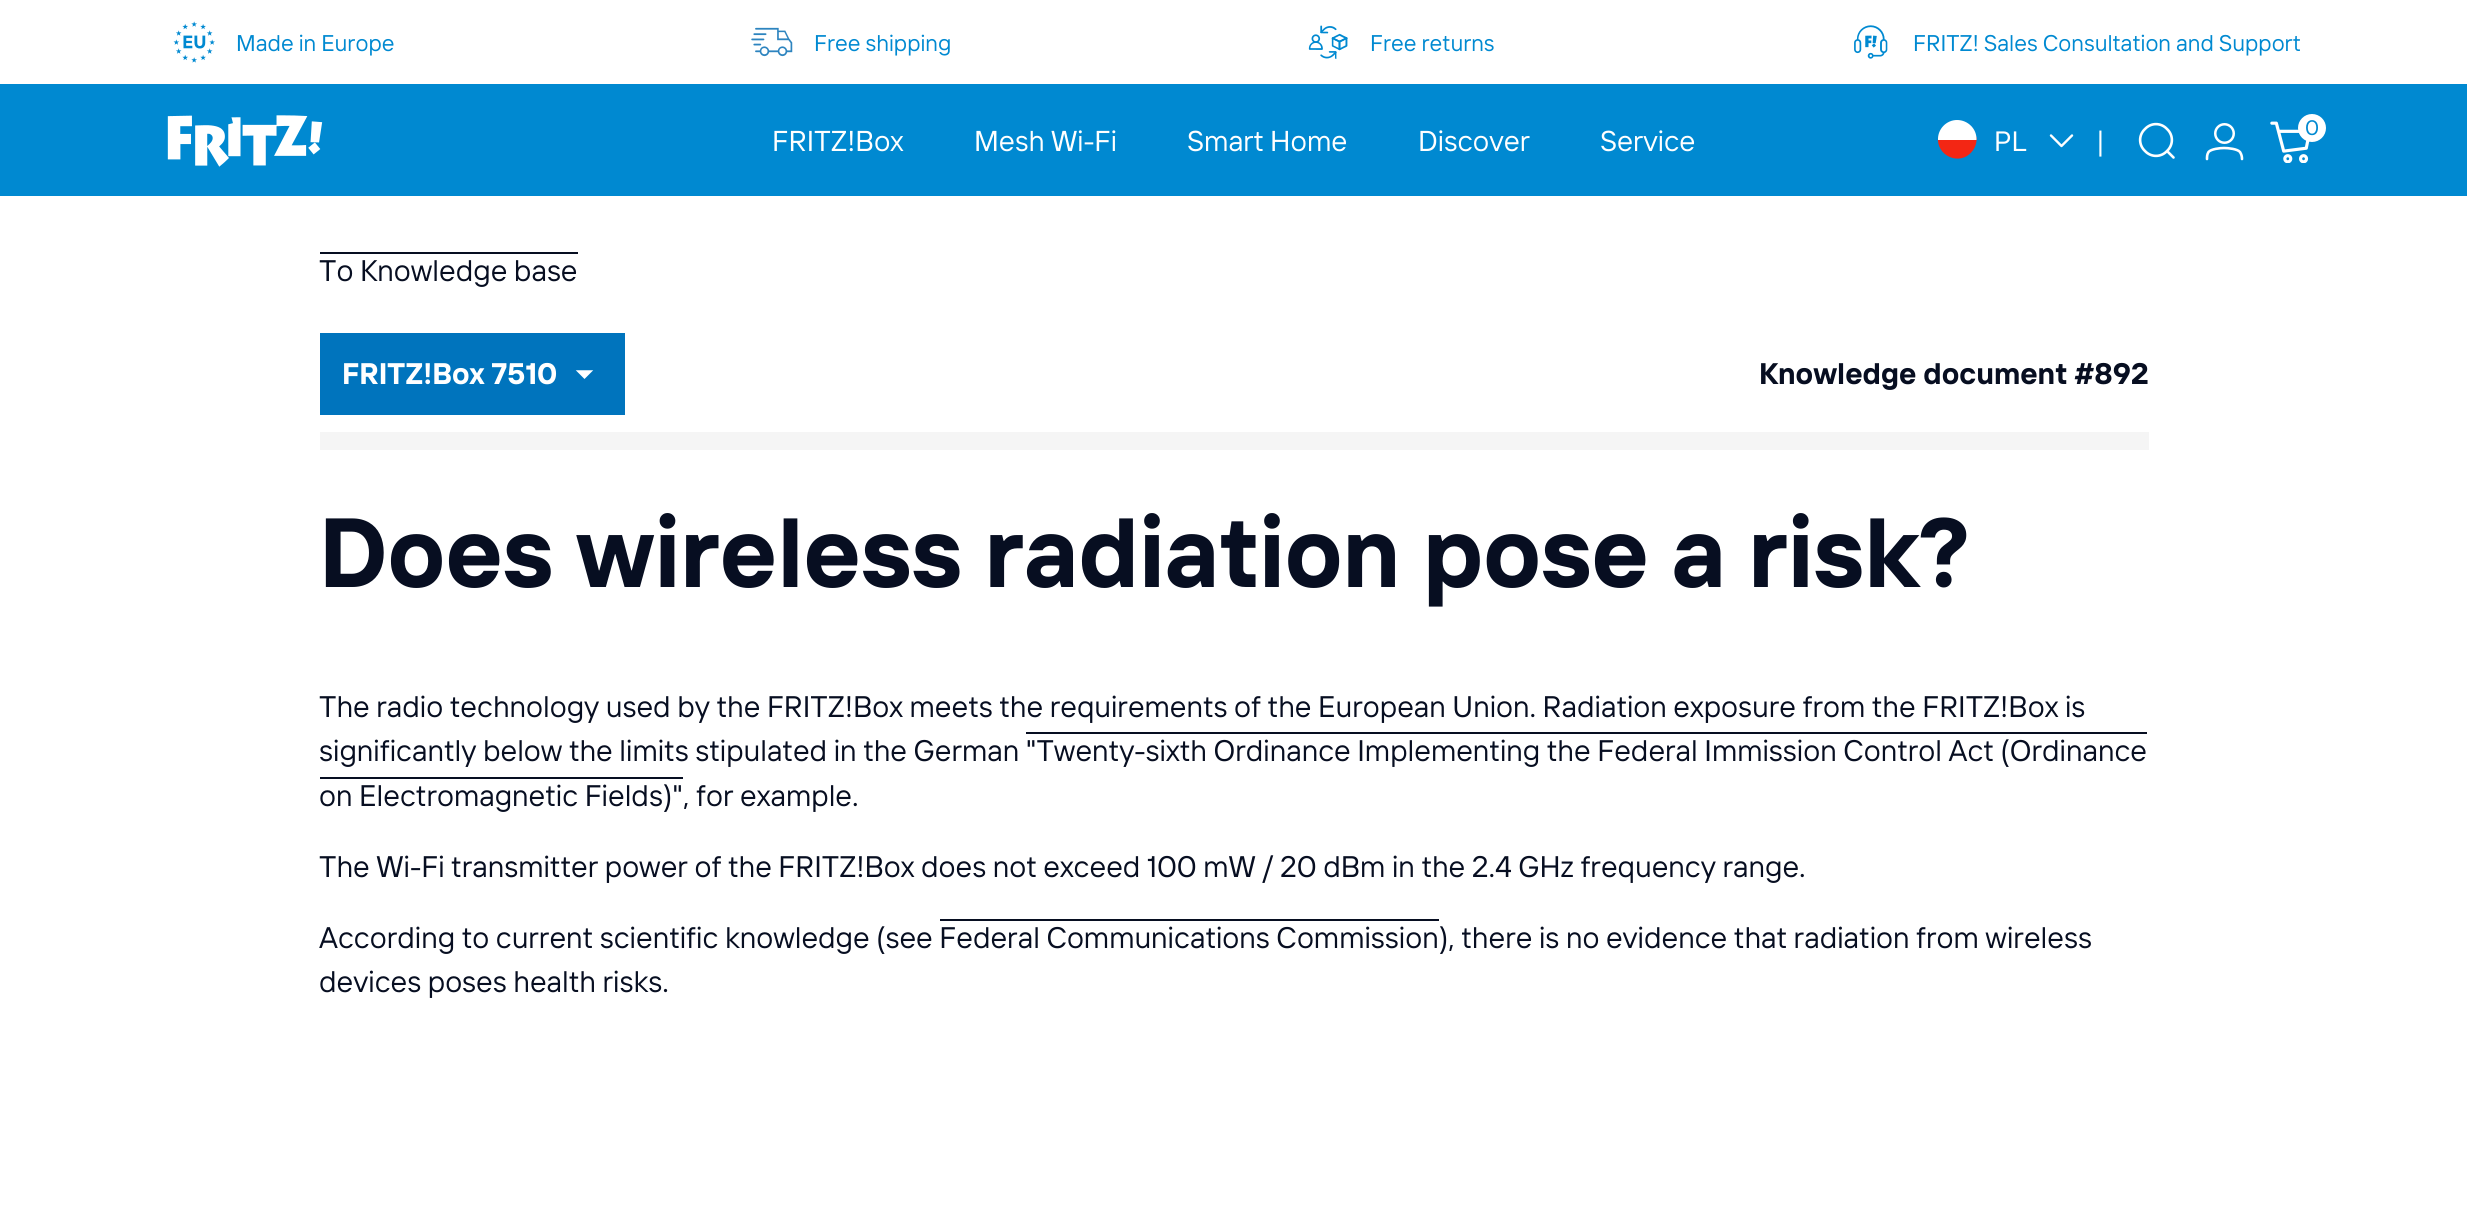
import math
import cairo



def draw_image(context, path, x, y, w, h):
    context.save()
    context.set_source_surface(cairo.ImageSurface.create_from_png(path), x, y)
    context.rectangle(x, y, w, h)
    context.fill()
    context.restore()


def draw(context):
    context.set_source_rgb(1, 1, 1)
    context.paint()
    draw_image(context, "images/1.png", 173, 21, 42, 42)
    draw_image(context, "images/2.png", 751, 27, 42, 30)
    draw_image(context, "images/3.png", 1308, 25, 40, 34)
    draw_image(context, "images/4.png", 1854, 25, 34, 34)
    context.set_source_rgb(0, 137 / 255, 209 / 255)
    context.rectangle(0, 84, 2467, 112)
    context.fill()
    draw_image(context, "images/5.png", 167, 115, 156, 52)
    context.new_path()
    context.move_to(2173.5, 157.5)
    context.line_to(2167, 151)
    context.move_to(2167, 151)
    context.curve_to(2173.5, 145, 2173.5, 135, 2167, 129)
    context.curve_to(2161, 122.5, 2151, 122.5, 2145, 129)
    context.curve_to(2138.5, 135, 2138.5, 145, 2145, 151)
    context.curve_to(2151, 157.5, 2161, 157.5, 2167, 151)
    context.close_path()
    context.set_source_rgb(1, 1, 1)
    context.set_line_width(2.6)
    context.set_line_cap(cairo.LineCap.ROUND)
    context.stroke()
    context.arc(2224.5, 133.5, 9.25, 0, 2 * math.pi)
    context.set_line_width(2.5)
    context.set_line_cap(cairo.LineCap.BUTT)
    context.stroke()
    context.new_path()
    context.move_to(2224, 148)
    context.curve_to(2228.5, 148, 2237.5, 149, 2240, 152)
    context.curve_to(2241.5, 154.5, 2242, 156.5, 2242, 159)
    context.move_to(2224, 148)
    context.curve_to(2220, 148, 2211, 149, 2208.5, 152)
    context.curve_to(2207, 154.5, 2207, 156.5, 2207, 159)
    context.set_line_width(2.6)
    context.set_line_cap(cairo.LineCap.ROUND)
    context.stroke()
    draw_image(context, "images/6.png", 2270, 121, 40, 42)
    context.arc(2312, 128, 14, 0, 2 * math.pi)
    context.fill()
    context.set_source_rgb(243 / 255, 38 / 255, 20 / 255)
    context.new_path()
    context.move_to(1976.5, 137)
    context.line_to(1938, 137)
    context.curve_to(1936, 156, 1960, 166.5, 1972, 151.5)
    context.curve_to(1975.5, 147.5, 1977, 142, 1976.5, 137)
    context.close_path()
    context.fill()
    context.set_source_rgb(1, 1, 1)
    context.new_path()
    context.move_to(1957, 120)
    context.curve_to(1968, 120, 1977, 129, 1976.5, 140)
    context.line_to(1938, 140)
    context.curve_to(1937.5, 129, 1946.5, 120, 1957, 120)
    context.close_path()
    context.fill()
    context.new_path()
    context.move_to(2051, 135.5)
    context.line_to(2061.5, 146)
    context.line_to(2072, 135.5)
    context.set_line_width(2.4)
    context.set_line_join(cairo.LineJoin.ROUND)
    context.stroke()
    context.set_source_rgb(7 / 255, 14 / 255, 33 / 255)
    context.rectangle(320, 252, 258, 2)
    context.fill()
    context.set_source_rgb(245 / 255, 245 / 255, 245 / 255)
    context.rectangle(320, 432, 1829, 18)
    context.fill()
    context.set_source_rgb(0, 116 / 255, 189 / 255)
    context.rectangle(320, 333, 305, 82)
    context.fill()
    draw_image(context, "images/7.png", 575, 370, 19, 9)
    context.set_source_rgb(7 / 255, 14 / 255, 33 / 255)
    context.rectangle(1026, 732, 1121, 2)
    context.fill()
    context.rectangle(320, 777, 363, 2)
    context.fill()
    context.rectangle(940, 919, 499, 2)
    context.fill()
    context.select_font_face("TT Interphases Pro")
    context.set_font_size(22.75)
    context.set_source_rgb(0, 137 / 255, 209 / 255)
    context.move_to(236, 51)
    context.show_text("Made in Europe")
    context.move_to(814, 51)
    context.show_text("Free shipping")
    context.move_to(1370, 51)
    context.show_text("Free returns")
    context.move_to(1913, 51)
    context.show_text("FRITZ! Sales Consultation and Support")
    context.set_font_size(28.75)
    context.set_source_rgb(1, 1, 1)
    context.move_to(772, 151)
    context.show_text("FRITZ!Box")
    context.move_to(974, 151)
    context.show_text("Mesh Wi-Fi")
    context.move_to(1187, 151)
    context.show_text("Smart Home")
    context.move_to(1418, 151)
    context.show_text("Discover")
    context.move_to(1600, 151)
    context.show_text("Service")
    context.set_font_size(21)
    context.set_source_rgb(0, 137 / 255, 209 / 255)
    context.move_to(2305, 135)
    context.show_text("0")
    context.set_font_size(28)
    context.set_source_rgb(1, 1, 1)
    context.move_to(1994, 151)
    context.show_text("PL")
    context.move_to(2096, 151)
    context.show_text("|")
    context.set_font_size(29.75)
    context.set_source_rgb(7 / 255, 14 / 255, 33 / 255)
    context.move_to(319, 281)
    context.show_text("To Knowledge base")
    context.select_font_face("TT Interphases Pro", cairo.FontSlant.NORMAL, cairo.FontWeight.BOLD)
    context.set_source_rgb(1, 1, 1)
    context.move_to(342, 384)
    context.show_text("FRITZ!Box 7510")
    context.set_source_rgb(7 / 255, 14 / 255, 33 / 255)
    context.move_to(1759, 384)
    context.show_text("Knowledge document #892")
    context.set_font_size(98)
    context.move_to(319, 587)
    context.show_text("Does wireless radiation pose a risk?")
    context.select_font_face("TT Interphases Pro")
    context.set_font_size(29.75)
    context.move_to(319, 717)
    context.show_text("The radio technology used by the FRITZ!Box meets the requirements of the European Union. Radiation exposure from the FRITZ!Box is")
    context.move_to(319, 761)
    context.show_text("significantly below the limits stipulated in the German \"Twenty-sixth Ordinance Implementing the Federal Immission Control Act (Ordinance")
    context.move_to(319, 806)
    context.show_text("on Electromagnetic Fields)\"")
    context.move_to(683, 806)
    context.show_text(", for example.")
    context.move_to(319, 877)
    context.show_text("The Wi-Fi transmitter power of the FRITZ!Box does not exceed 100 mW / 20 dBm in the 2.4 GHz frequency range.")
    context.move_to(319, 948)
    context.show_text("According to current scientific knowledge (see Federal Communications Commission")
    context.move_to(1439, 948)
    context.show_text("), there is no evidence that radiation from wireless")
    context.move_to(319, 992)
    context.show_text("devices poses health risks.")


surface = cairo.ImageSurface(cairo.Format.RGB24, 2467, 1228)
context = cairo.Context(surface)
options = cairo.FontOptions()
options.set_hint_metrics(cairo.HintMetrics.OFF)
options.set_hint_style(cairo.HintStyle.NONE)
context.set_font_options(options)
context.set_miter_limit(4)
draw(context)
surface.write_to_png("out.png")
